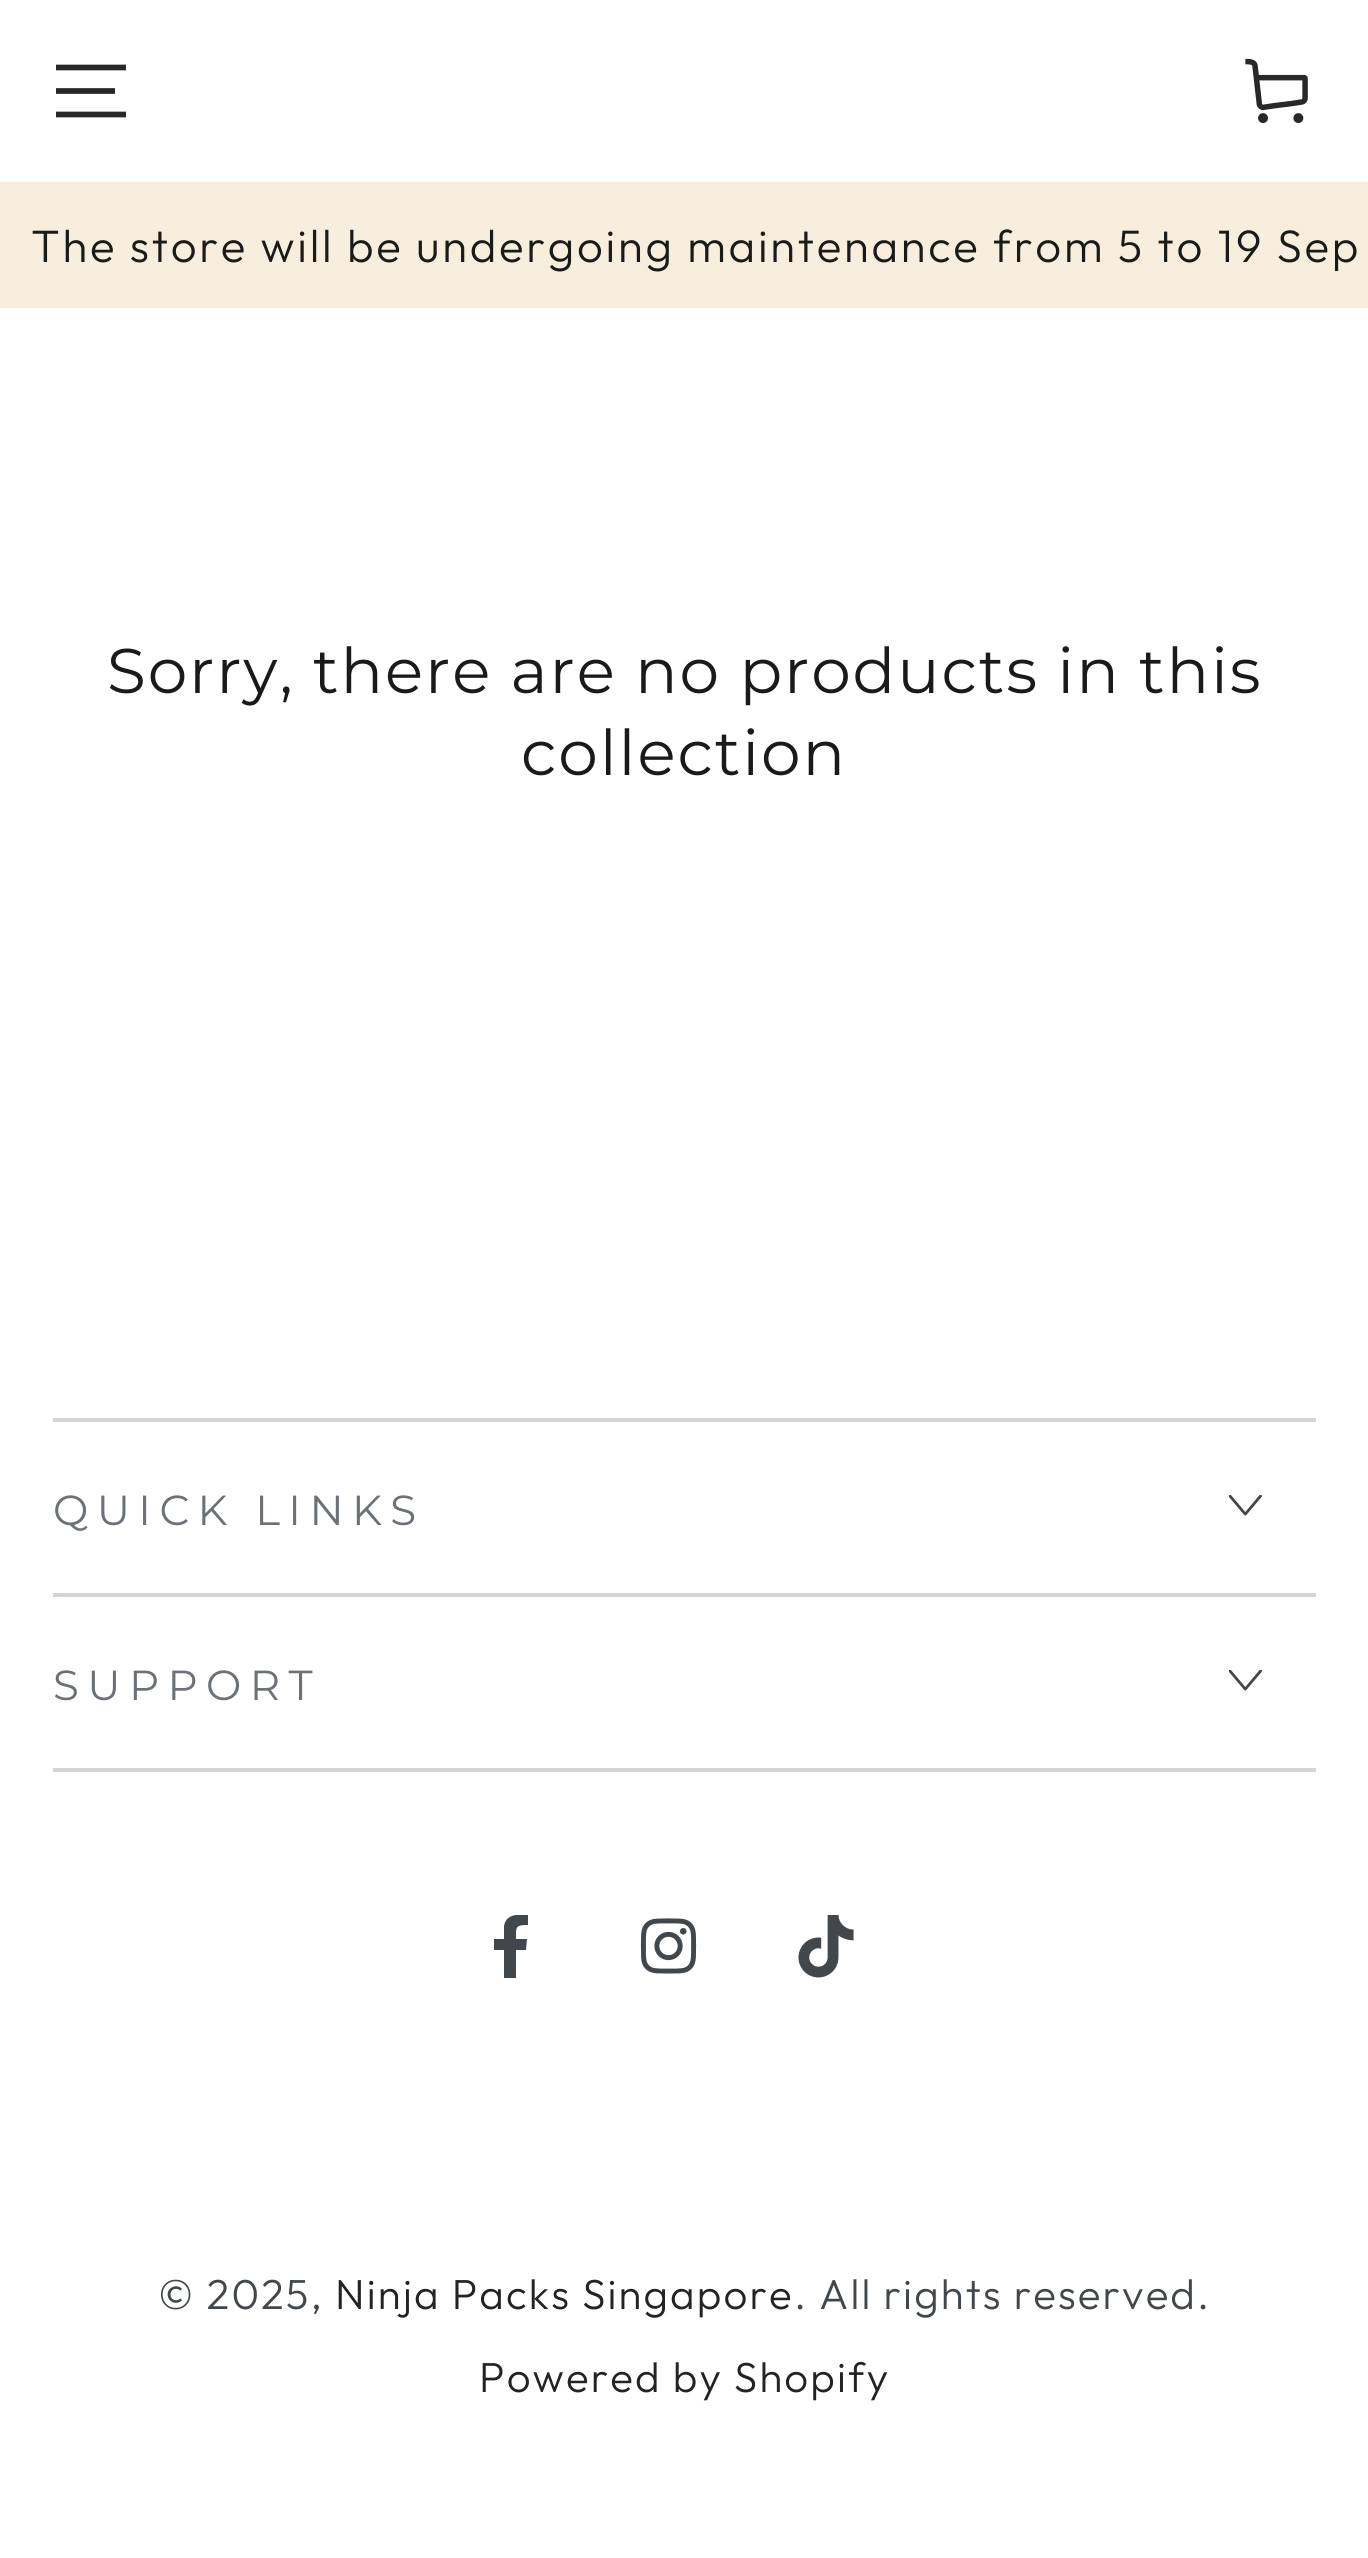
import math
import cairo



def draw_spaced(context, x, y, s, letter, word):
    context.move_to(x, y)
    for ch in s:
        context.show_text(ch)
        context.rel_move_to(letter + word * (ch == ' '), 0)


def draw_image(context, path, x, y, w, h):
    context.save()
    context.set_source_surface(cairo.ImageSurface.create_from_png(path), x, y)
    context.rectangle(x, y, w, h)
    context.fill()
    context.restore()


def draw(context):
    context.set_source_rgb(1, 1, 1)
    context.paint()
    context.new_path()
    context.move_to(56, 114.5)
    context.line_to(126, 114.5)
    context.move_to(56, 91)
    context.line_to(115, 91)
    context.move_to(56, 67.5)
    context.line_to(126, 67.5)
    context.set_source_rgb(40 / 255, 40 / 255, 40 / 255)
    context.set_line_width(5.7)
    context.stroke()
    draw_image(context, "images/1.png", 1245, 58, 63, 66)
    context.set_source_rgb(247 / 255, 238 / 255, 221 / 255)
    context.rectangle(0, 182, 1368, 126)
    context.fill()
    context.set_source_rgb(210 / 255, 213 / 255, 217 / 255)
    context.rectangle(53, 1418, 1263, 4)
    context.fill()
    context.rectangle(53, 1593, 1263, 4)
    context.fill()
    draw_image(context, "images/2.png", 1229, 1495, 33, 21)
    context.rectangle(53, 1768, 1263, 4)
    context.fill()
    draw_image(context, "images/2.png", 1229, 1670, 33, 21)
    context.save()
    context.rectangle(480, 1915, 63, 63)
    context.clip()
    context.set_source_rgb(66 / 255, 71 / 255, 76 / 255)
    context.new_path()
    context.move_to(526, 1950)
    context.line_to(527, 1939)
    context.line_to(516, 1939)
    context.curve_to(516, 1927, 515, 1925, 528, 1925)
    context.line_to(528, 1915)
    context.curve_to(518, 1914, 506, 1914, 504, 1926)
    context.line_to(504, 1939)
    context.line_to(494, 1939)
    context.line_to(494, 1950)
    context.line_to(504, 1950)
    context.line_to(504, 1978)
    context.line_to(516, 1978)
    context.line_to(516, 1950)
    context.close_path()
    context.fill()
    context.restore()
    draw_image(context, "images/3.png", 640, 1918, 57, 56)
    draw_image(context, "images/4.png", 798, 1915, 56, 63)
    context.select_font_face("Outfit Light")
    context.set_font_size(45.5)
    context.set_source_rgb(26 / 255, 27 / 255, 24 / 255)
    draw_spaced(context, 31, 262, "The store will be undergoing maintenance from 5 to 19 Sep", 2.73, 0)
    context.select_font_face("Montserrat")
    context.set_font_size(63)
    draw_spaced(context, 107, 693, "Sorry, there are no products in this", 1.9, 0)
    draw_spaced(context, 521, 775, "collection", 1.9, 0)
    context.set_font_size(42)
    context.set_source_rgb(107 / 255, 113 / 255, 119 / 255)
    draw_spaced(context, 53, 1525, "QUICK LINKS", 8.4, 0)
    draw_spaced(context, 53, 1700, "SUPPORT", 8.4, 0)
    context.select_font_face("Outfit Light")
    context.set_source_rgb(66 / 255, 71 / 255, 76 / 255)
    draw_spaced(context, 158, 2309, "© 2025,", 2.1, 0)
    context.set_source_rgb(33 / 255, 35 / 255, 38 / 255)
    draw_spaced(context, 335, 2309, "Ninja Packs Singapore", 2.1, 0)
    context.set_source_rgb(66 / 255, 71 / 255, 76 / 255)
    draw_spaced(context, 794, 2309, ". All rights reserved.", 2.1, 0)
    context.set_source_rgb(33 / 255, 35 / 255, 38 / 255)
    draw_spaced(context, 479, 2392, "Powered by Shopify", 2.1, 0)


surface = cairo.ImageSurface(cairo.Format.RGB24, 1368, 2558)
context = cairo.Context(surface)
options = cairo.FontOptions()
options.set_hint_metrics(cairo.HintMetrics.OFF)
options.set_hint_style(cairo.HintStyle.NONE)
context.set_font_options(options)
context.set_miter_limit(4)
draw(context)
surface.write_to_png("out.png")
